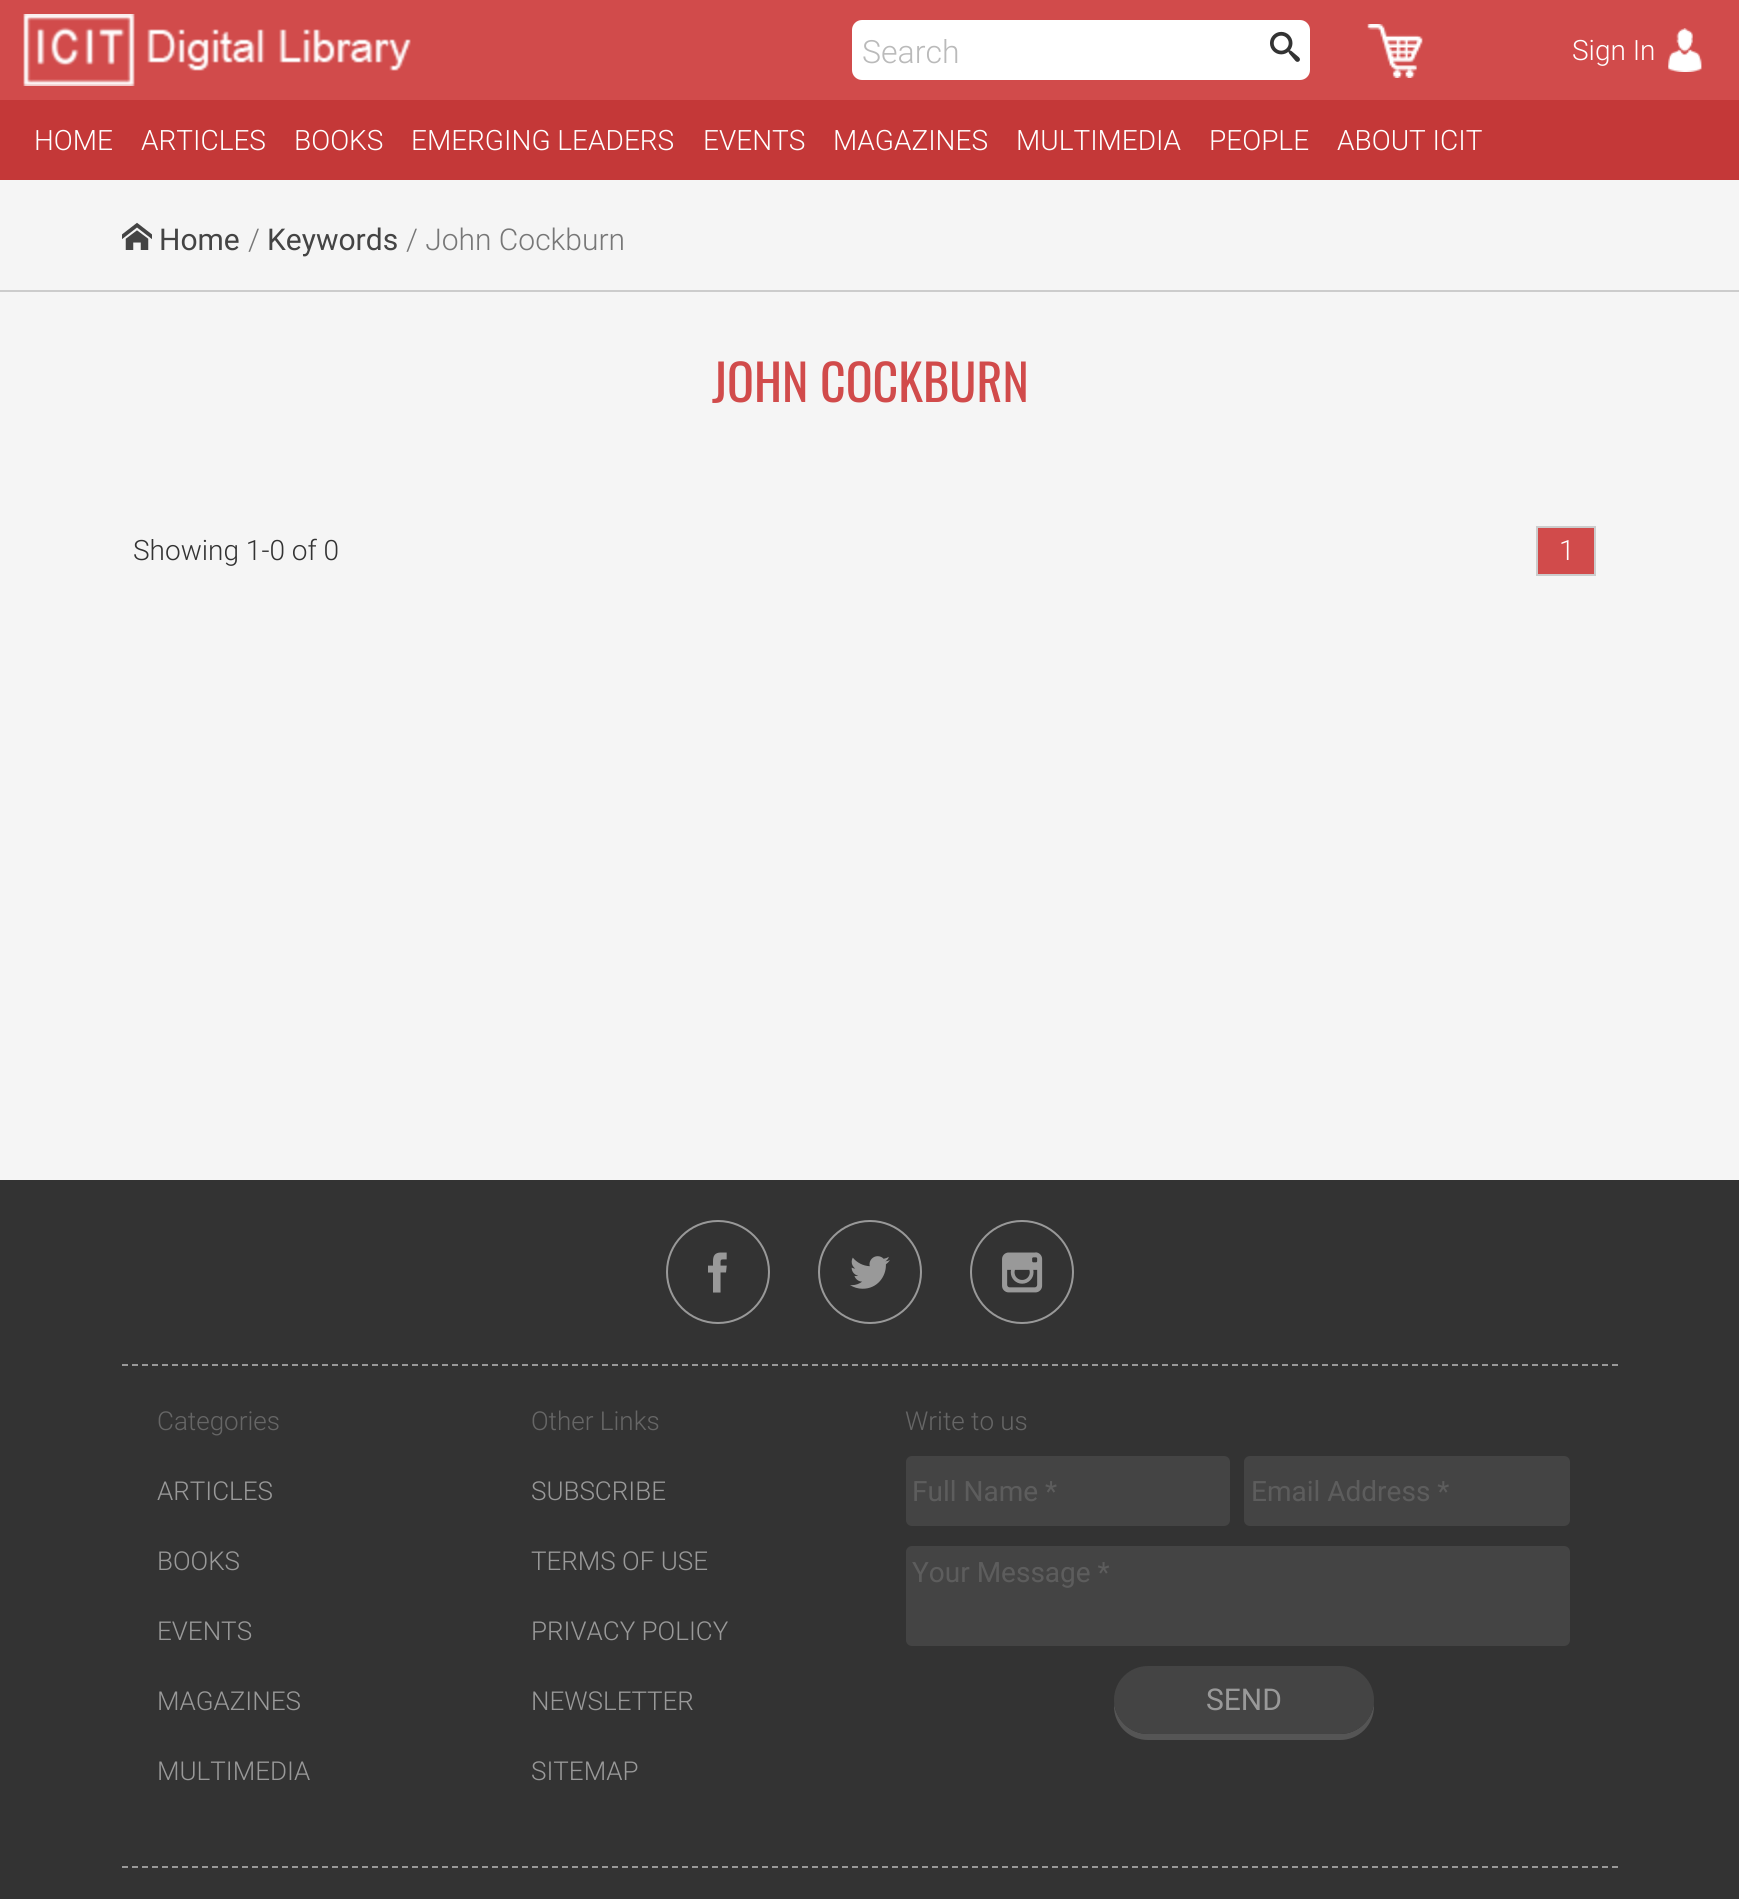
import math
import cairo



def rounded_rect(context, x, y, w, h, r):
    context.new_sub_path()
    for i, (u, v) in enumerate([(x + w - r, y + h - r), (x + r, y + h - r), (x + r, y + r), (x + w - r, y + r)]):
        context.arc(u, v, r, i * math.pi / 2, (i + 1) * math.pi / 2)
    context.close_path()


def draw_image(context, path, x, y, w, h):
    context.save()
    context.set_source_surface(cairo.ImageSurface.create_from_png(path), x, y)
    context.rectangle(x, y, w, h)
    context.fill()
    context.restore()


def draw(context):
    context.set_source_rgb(245 / 255, 245 / 255, 245 / 255)
    context.paint()
    context.set_source_rgb(209 / 255, 75 / 255, 75 / 255)
    context.rectangle(0, 0, 1739, 100)
    context.fill()
    draw_image(context, "images/1.png", 23, 14, 388, 72)
    context.set_source_rgb(1, 1, 1)
    rounded_rect(context, 852, 20, 458, 60, 10)
    context.fill()
    draw_image(context, "images/2.png", 1270, 31, 30, 31)
    draw_image(context, "images/3.png", 1367, 24, 56, 54)
    draw_image(context, "images/4.png", 1668, 28, 34, 44)
    context.set_source_rgb(196 / 255, 56 / 255, 56 / 255)
    context.rectangle(0, 100, 1739, 80)
    context.fill()
    context.set_source_rgb(204 / 255, 204 / 255, 204 / 255)
    context.rectangle(0, 290, 1739, 2)
    context.fill()
    draw_image(context, "images/5.png", 122, 222, 30, 28)
    context.set_source_rgb(209 / 255, 75 / 255, 75 / 255)
    context.rectangle(1537, 527, 58, 48)
    context.fill_preserve()
    context.set_source_rgb(204 / 255, 204 / 255, 204 / 255)
    context.stroke()
    context.set_source_rgb(51 / 255, 51 / 255, 51 / 255)
    context.rectangle(0, 1180, 1739, 719)
    context.fill()
    context.new_path()
    context.move_to(122, 1365)
    context.line_to(1618, 1365)
    context.set_source_rgb(153 / 255, 153 / 255, 153 / 255)
    context.set_dash([6, 4])
    context.stroke()
    context.arc(718, 1272, 51, 0, 2 * math.pi)
    context.set_dash([])
    context.stroke()
    draw_image(context, "images/6.png", 708, 1252, 19, 41)
    context.arc(870, 1272, 51, 0, 2 * math.pi)
    context.stroke()
    draw_image(context, "images/7.png", 850, 1256, 40, 33)
    context.arc(1022, 1272, 51, 0, 2 * math.pi)
    context.stroke()
    draw_image(context, "images/8.png", 1002, 1252, 41, 41)
    context.set_source_rgb(68 / 255, 68 / 255, 68 / 255)
    rounded_rect(context, 906, 1456, 324, 70, 6)
    context.fill()
    rounded_rect(context, 1244, 1456, 326, 70, 6)
    context.fill()
    rounded_rect(context, 906, 1546, 664, 100, 6)
    context.fill()
    context.set_source_rgb(85 / 255, 85 / 255, 85 / 255)
    context.new_path()
    context.move_to(1114, 1703)
    context.line_to(1114, 1706)
    context.curve_to(1114, 1725, 1129, 1740, 1148, 1740)
    context.line_to(1340, 1740)
    context.curve_to(1359, 1740, 1374, 1725, 1374, 1706)
    context.line_to(1374, 1703)
    context.curve_to(1372, 1720, 1358, 1734, 1340, 1734)
    context.line_to(1148, 1734)
    context.curve_to(1130, 1734, 1116, 1720, 1114, 1703)
    context.close_path()
    context.fill()
    context.set_source_rgb(68 / 255, 68 / 255, 68 / 255)
    rounded_rect(context, 1114, 1666, 260, 68, 34)
    context.fill()
    context.new_path()
    context.move_to(122, 1867)
    context.line_to(1618, 1867)
    context.set_source_rgb(153 / 255, 153 / 255, 153 / 255)
    context.set_dash([6, 4])
    context.stroke()
    context.select_font_face("Roboto Light")
    context.set_font_size(32)
    context.set_source_rgb(186 / 255, 186 / 255, 186 / 255)
    context.move_to(862, 63)
    context.show_text("Search")
    context.set_font_size(28)
    context.set_source_rgb(1, 1, 1)
    context.move_to(1572, 60)
    context.show_text("Sign In")
    context.move_to(34, 150)
    context.show_text("HOME")
    context.move_to(141, 150)
    context.show_text("ARTICLES")
    context.move_to(294, 150)
    context.show_text("BOOKS")
    context.move_to(411, 150)
    context.show_text("EMERGING LEADERS")
    context.move_to(703, 150)
    context.show_text("EVENTS")
    context.move_to(833, 150)
    context.show_text("MAGAZINES")
    context.move_to(1016, 150)
    context.show_text("MULTIMEDIA")
    context.move_to(1209, 150)
    context.show_text("PEOPLE")
    context.move_to(1337, 150)
    context.show_text("ABOUT ICIT")
    context.select_font_face("Roboto")
    context.set_font_size(30)
    context.set_source_rgb(68 / 255, 68 / 255, 68 / 255)
    context.move_to(159, 250)
    context.show_text("Home")
    context.select_font_face("Roboto Light")
    context.set_source_rgb(119 / 255, 119 / 255, 119 / 255)
    context.move_to(248, 250)
    context.show_text("/")
    context.select_font_face("Roboto")
    context.set_source_rgb(68 / 255, 68 / 255, 68 / 255)
    context.move_to(267, 250)
    context.show_text("Keywords")
    context.select_font_face("Roboto Light")
    context.set_source_rgb(119 / 255, 119 / 255, 119 / 255)
    context.move_to(406, 250)
    context.show_text("/ John Cockburn")
    context.select_font_face("Oswald")
    context.set_font_size(50)
    context.set_source_rgb(209 / 255, 75 / 255, 75 / 255)
    context.move_to(712, 402)
    context.show_text("JOHN COCKBURN")
    context.select_font_face("Roboto Light")
    context.set_font_size(28)
    context.set_source_rgb(51 / 255, 51 / 255, 51 / 255)
    context.move_to(133, 560)
    context.show_text("Showing 1-0 of 0")
    context.set_source_rgb(1, 1, 1)
    context.move_to(1559, 560)
    context.show_text("1")
    context.set_font_size(26)
    context.set_source_rgb(102 / 255, 102 / 255, 102 / 255)
    context.move_to(157, 1430)
    context.show_text("Categories")
    context.set_source_rgb(153 / 255, 153 / 255, 153 / 255)
    context.move_to(157, 1500)
    context.show_text("ARTICLES")
    context.move_to(157, 1570)
    context.show_text("BOOKS")
    context.move_to(157, 1640)
    context.show_text("EVENTS")
    context.move_to(157, 1710)
    context.show_text("MAGAZINES")
    context.move_to(157, 1780)
    context.show_text("MULTIMEDIA")
    context.set_source_rgb(102 / 255, 102 / 255, 102 / 255)
    context.move_to(531, 1430)
    context.show_text("Other Links")
    context.set_source_rgb(153 / 255, 153 / 255, 153 / 255)
    context.move_to(531, 1500)
    context.show_text("SUBSCRIBE")
    context.move_to(531, 1570)
    context.show_text("TERMS OF USE")
    context.move_to(531, 1640)
    context.show_text("PRIVACY POLICY")
    context.move_to(531, 1710)
    context.show_text("NEWSLETTER")
    context.move_to(531, 1780)
    context.show_text("SITEMAP")
    context.set_source_rgb(102 / 255, 102 / 255, 102 / 255)
    context.move_to(905, 1430)
    context.show_text("Write to us")
    context.select_font_face("Roboto")
    context.set_font_size(28)
    context.set_source_rgb(93 / 255, 93 / 255, 93 / 255)
    context.move_to(912, 1501)
    context.show_text("Full Name *")
    context.move_to(1251, 1501)
    context.show_text("Email Address *")
    context.move_to(912, 1582)
    context.show_text("Your Message *")
    context.set_font_size(30)
    context.set_source_rgb(153 / 255, 153 / 255, 153 / 255)
    context.move_to(1206, 1710)
    context.show_text("SEND")


surface = cairo.ImageSurface(cairo.Format.RGB24, 1739, 1899)
context = cairo.Context(surface)
options = cairo.FontOptions()
options.set_hint_metrics(cairo.HintMetrics.OFF)
options.set_hint_style(cairo.HintStyle.NONE)
context.set_font_options(options)
context.set_miter_limit(4)
draw(context)
surface.write_to_png("out.png")
